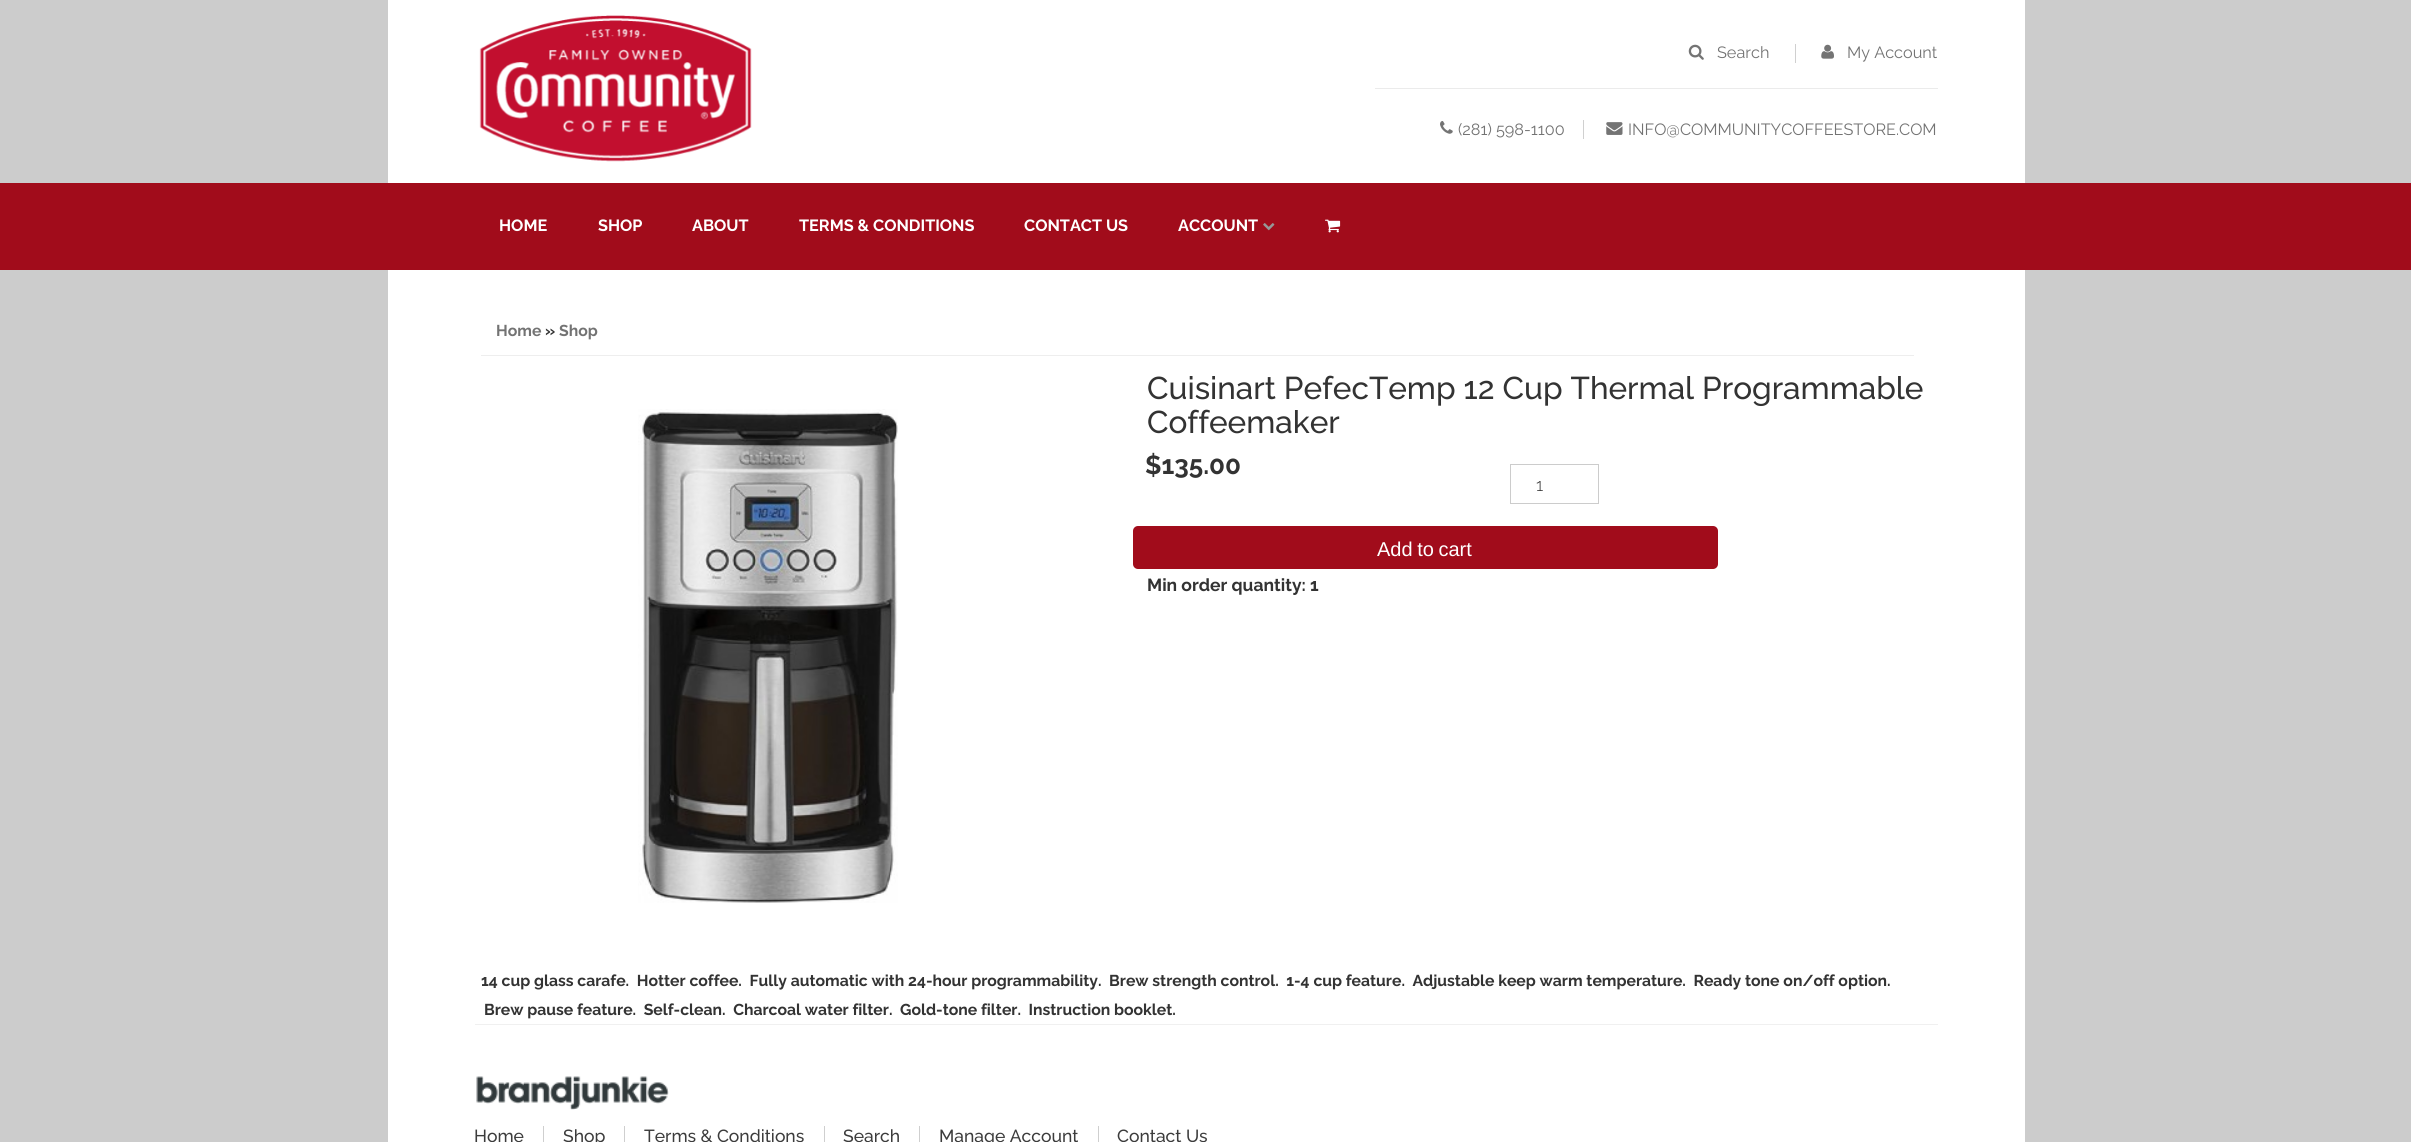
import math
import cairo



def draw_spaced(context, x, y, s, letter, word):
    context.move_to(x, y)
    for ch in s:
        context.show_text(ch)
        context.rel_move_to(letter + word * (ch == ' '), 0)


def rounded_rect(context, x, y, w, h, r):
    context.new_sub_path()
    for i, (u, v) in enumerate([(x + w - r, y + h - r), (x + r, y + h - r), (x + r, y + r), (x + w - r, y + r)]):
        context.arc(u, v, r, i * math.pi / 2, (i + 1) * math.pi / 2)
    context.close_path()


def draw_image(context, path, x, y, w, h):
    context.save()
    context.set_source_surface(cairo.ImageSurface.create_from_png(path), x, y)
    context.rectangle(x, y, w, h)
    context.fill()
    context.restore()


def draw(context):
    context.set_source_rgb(204 / 255, 204 / 255, 204 / 255)
    context.paint()
    context.set_source_rgb(1, 1, 1)
    context.rectangle(388, 0, 1637, 1142)
    context.fill()
    draw_image(context, "images/1.png", 479, 15, 273, 147)
    draw_image(context, "images/2.png", 1688, 44, 16, 16)
    context.set_source_rgb(208 / 255, 208 / 255, 208 / 255)
    context.rectangle(1795, 44, 1, 19)
    context.fill()
    draw_image(context, "images/3.png", 1821, 44, 13, 15)
    context.set_source_rgb(235 / 255, 235 / 255, 235 / 255)
    context.rectangle(1375, 88, 563, 1)
    context.fill()
    context.set_source_rgb(208 / 255, 208 / 255, 208 / 255)
    context.rectangle(1583, 120, 1, 19)
    context.fill()
    draw_image(context, "images/4.png", 1440, 121, 13, 13)
    draw_image(context, "images/5.png", 1606, 122, 17, 13)
    context.set_source_rgb(161 / 255, 12 / 255, 27 / 255)
    context.rectangle(0, 183, 2411, 87)
    context.fill()
    draw_image(context, "images/6.png", 1263, 223, 12, 8)
    draw_image(context, "images/7.png", 1325, 219, 16, 14)
    context.set_source_rgb(238 / 255, 238 / 255, 238 / 255)
    context.rectangle(481, 355, 1433, 1)
    context.fill()
    context.rectangle(1510.5, 464.5, 88, 39)
    context.set_source_rgb(204 / 255, 204 / 255, 204 / 255)
    context.set_line_width(1)
    context.stroke()
    context.set_source_rgb(161 / 255, 12 / 255, 27 / 255)
    rounded_rect(context, 1133, 526, 585, 43, 5)
    context.fill()
    draw_image(context, "images/8.png", 638, 409, 260, 494)
    context.set_source_rgb(240 / 255, 240 / 255, 240 / 255)
    context.rectangle(475, 1024, 1463, 1)
    context.fill()
    draw_image(context, "images/9.png", 476, 1076, 193, 34)
    context.set_source_rgb(207 / 255, 207 / 255, 207 / 255)
    context.rectangle(543, 1126, 1, 16)
    context.fill()
    context.rectangle(624, 1126, 1, 16)
    context.fill()
    context.rectangle(824, 1126, 1, 16)
    context.fill()
    context.rectangle(919, 1126, 1, 16)
    context.fill()
    context.rectangle(1098, 1126, 1, 16)
    context.fill()
    context.select_font_face("Raleway")
    context.set_font_size(16.25)
    context.set_source_rgb(115 / 255, 115 / 255, 115 / 255)
    context.move_to(1717, 58)
    context.show_text("Search")
    context.move_to(1847, 58)
    context.show_text("My Account")
    context.move_to(1458, 135)
    context.show_text("(281) 598-1100")
    context.move_to(1628, 135)
    context.show_text("INFO@COMMUNITYCOFFEESTORE.COM")
    context.select_font_face("Raleway", cairo.FontSlant.NORMAL, cairo.FontWeight.BOLD)
    context.set_source_rgb(1, 1, 1)
    context.move_to(499, 231)
    context.show_text("HOME")
    context.move_to(598, 231)
    context.show_text("SHOP")
    context.move_to(692, 231)
    context.show_text("ABOUT")
    context.move_to(799, 231)
    context.show_text("TERMS & CONDITIONS")
    context.move_to(1024, 231)
    context.show_text("CONTACT US")
    context.move_to(1178, 231)
    context.show_text("ACCOUNT")
    context.set_font_size(15.75)
    context.set_source_rgb(115 / 255, 115 / 255, 115 / 255)
    context.move_to(496, 336)
    context.show_text("Home")
    context.set_source_rgb(51 / 255, 51 / 255, 51 / 255)
    context.move_to(545, 336)
    context.show_text("»")
    context.set_source_rgb(115 / 255, 115 / 255, 115 / 255)
    context.move_to(559, 336)
    context.show_text("Shop")
    context.select_font_face("Raleway Medium")
    context.set_font_size(31.5)
    context.set_source_rgb(51 / 255, 51 / 255, 51 / 255)
    context.move_to(1147, 399)
    context.show_text("Cuisinart PefecTemp 12 Cup Thermal Programmable")
    context.move_to(1147, 433)
    context.show_text("Coffeemaker")
    context.select_font_face("Raleway", cairo.FontSlant.NORMAL, cairo.FontWeight.BOLD)
    context.set_font_size(26)
    context.move_to(1145, 474)
    context.show_text("$135.00")
    context.select_font_face("Raleway Light")
    context.set_font_size(17.5)
    context.move_to(1536, 491)
    context.show_text("1")
    context.select_font_face("Liberation Sans")
    context.set_font_size(20)
    context.set_source_rgb(1, 1, 1)
    draw_spaced(context, 1377, 556, "Add to cart", 0, -1)
    context.select_font_face("Raleway", cairo.FontSlant.NORMAL, cairo.FontWeight.BOLD)
    context.set_font_size(17.5)
    context.set_source_rgb(51 / 255, 51 / 255, 51 / 255)
    context.move_to(1147, 591)
    context.show_text("Min order quantity: 1")
    context.set_font_size(15.75)
    context.move_to(481, 986)
    context.show_text("14 cup glass carafe.  Hotter coffee.  Fully automatic with 24-hour programmability.  Brew strength control.  1-4 cup feature.  Adjustable keep warm temperature.  Ready tone on/off option.")
    context.move_to(484, 1015)
    context.show_text("Brew pause feature.  Self-clean.  Charcoal water filter.  Gold-tone filter.  Instruction booklet.")
    context.select_font_face("Raleway Medium")
    context.set_font_size(17.5)
    context.set_source_rgb(60 / 255, 60 / 255, 60 / 255)
    context.move_to(474, 1142)
    context.show_text("Home")
    context.move_to(563, 1142)
    context.show_text("Shop")
    context.move_to(644, 1142)
    context.show_text("Terms & Conditions")
    context.move_to(843, 1142)
    context.show_text("Search")
    context.move_to(939, 1142)
    context.show_text("Manage Account")
    context.move_to(1117, 1142)
    context.show_text("Contact Us")


surface = cairo.ImageSurface(cairo.Format.RGB24, 2411, 1142)
context = cairo.Context(surface)
options = cairo.FontOptions()
options.set_hint_metrics(cairo.HintMetrics.OFF)
options.set_hint_style(cairo.HintStyle.NONE)
context.set_font_options(options)
context.set_miter_limit(4)
draw(context)
surface.write_to_png("out.png")
